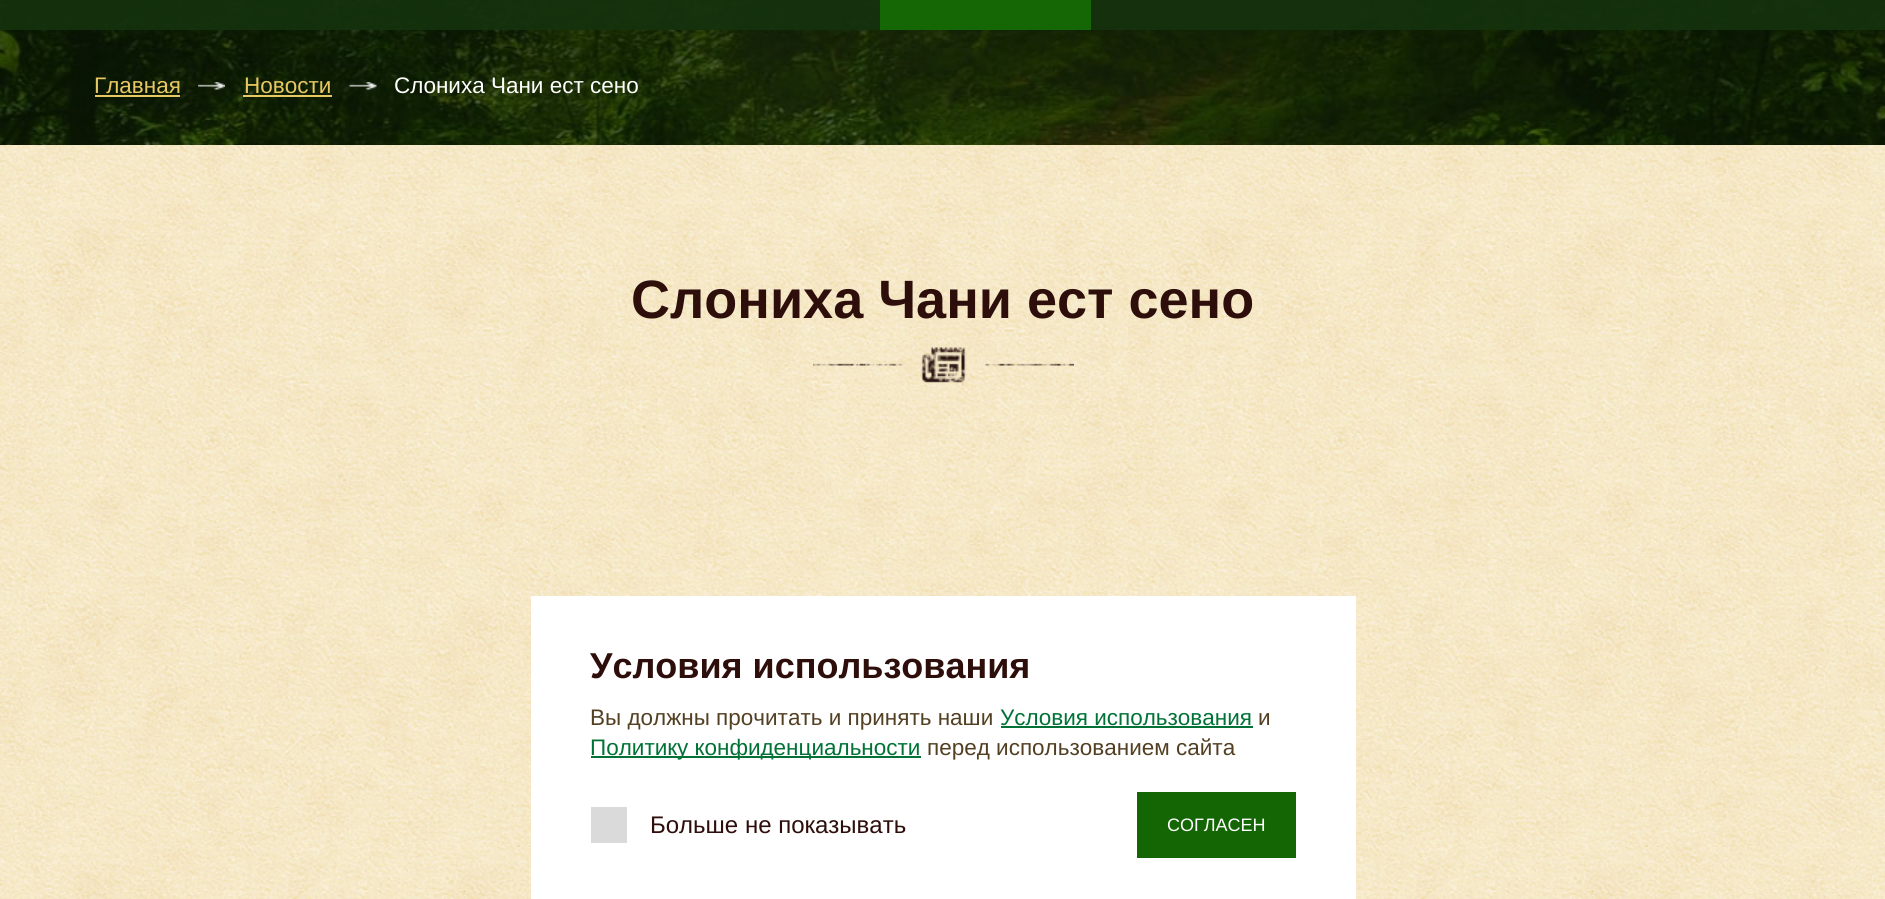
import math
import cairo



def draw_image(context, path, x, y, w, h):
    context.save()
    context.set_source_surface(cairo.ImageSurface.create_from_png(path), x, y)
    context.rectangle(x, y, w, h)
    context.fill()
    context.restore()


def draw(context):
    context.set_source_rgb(1, 1, 1)
    context.paint()
    draw_image(context, "images/1.png", 0, 0, 1885, 145)
    context.set_source_rgba(20 / 255, 50 / 255, 14 / 255, 0.9)
    context.rectangle(0, 0, 1885, 30)
    context.fill()
    context.set_source_rgb(21 / 255, 102 / 255, 5 / 255)
    context.rectangle(880, 0, 211, 30)
    context.fill()
    context.set_source_rgb(232 / 255, 200 / 255, 96 / 255)
    context.rectangle(95, 95, 85, 2)
    context.fill()
    draw_image(context, "images/2.png", 198, 82, 27, 8)
    context.rectangle(243, 95, 89, 2)
    context.fill()
    draw_image(context, "images/3.png", 349, 82, 28, 8)
    draw_image(context, "images/4.png", 0, 145, 1885, 754)
    draw_image(context, "images/5.png", 813, 347, 261, 36)
    context.set_source_rgb(1, 1, 1)
    context.rectangle(531, 596, 825, 303)
    context.fill()
    context.set_source_rgb(0, 114 / 255, 54 / 255)
    context.rectangle(1001, 726, 252, 2)
    context.fill()
    context.rectangle(591, 756, 330, 2)
    context.fill()
    context.set_source_rgb(218 / 255, 218 / 255, 218 / 255)
    context.rectangle(591, 807, 36, 36)
    context.fill()
    context.set_source_rgb(20 / 255, 102 / 255, 4 / 255)
    context.rectangle(1137, 792, 159, 66)
    context.fill()
    context.select_font_face("Arimo")
    context.set_font_size(22.5)
    context.set_source_rgb(232 / 255, 200 / 255, 96 / 255)
    context.move_to(94, 93)
    context.show_text("Главная")
    context.move_to(244, 93)
    context.show_text("Новости")
    context.set_source_rgb(1, 1, 1)
    context.move_to(394, 93)
    context.show_text("Слониха Чани ест сено")
    context.select_font_face("Arimo", cairo.FontSlant.NORMAL, cairo.FontWeight.BOLD)
    context.set_font_size(54)
    context.set_source_rgb(45 / 255, 14 / 255, 11 / 255)
    context.move_to(631, 318)
    context.show_text("Слониха Чани ест сено")
    context.set_font_size(36)
    context.move_to(590, 678)
    context.show_text("Условия использования")
    context.select_font_face("Arimo")
    context.set_font_size(22.5)
    context.set_source_rgb(83 / 255, 64 / 255, 35 / 255)
    context.move_to(590, 725)
    context.show_text("Вы должны прочитать и принять наши")
    context.set_source_rgb(0, 114 / 255, 54 / 255)
    context.move_to(1000, 725)
    context.show_text("Условия использования")
    context.set_source_rgb(83 / 255, 64 / 255, 35 / 255)
    context.move_to(1258, 725)
    context.show_text("и")
    context.set_source_rgb(0, 114 / 255, 54 / 255)
    context.move_to(590, 755)
    context.show_text("Политику конфиденциальности")
    context.set_source_rgb(83 / 255, 64 / 255, 35 / 255)
    context.move_to(927, 755)
    context.show_text("перед использованием сайта")
    context.set_font_size(24)
    context.set_source_rgb(45 / 255, 14 / 255, 11 / 255)
    context.move_to(650, 833)
    context.show_text("Больше не показывать")
    context.set_font_size(18)
    context.set_source_rgb(1, 1, 1)
    context.move_to(1167, 831)
    context.show_text("СОГЛАСЕН")


surface = cairo.ImageSurface(cairo.Format.RGB24, 1885, 899)
context = cairo.Context(surface)
options = cairo.FontOptions()
options.set_hint_metrics(cairo.HintMetrics.OFF)
options.set_hint_style(cairo.HintStyle.NONE)
context.set_font_options(options)
context.set_miter_limit(4)
draw(context)
surface.write_to_png("out.png")
